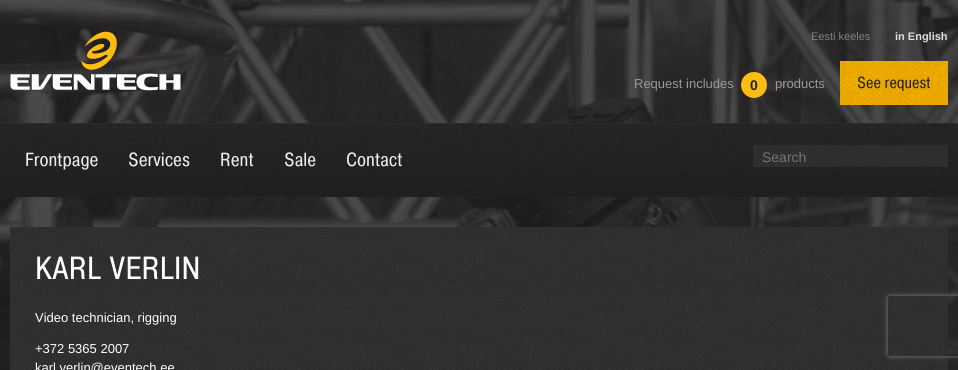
import math
import cairo



def rounded_rect(context, x, y, w, h, r):
    context.new_sub_path()
    for i, (u, v) in enumerate([(x + w - r, y + h - r), (x + r, y + h - r), (x + r, y + r), (x + w - r, y + r)]):
        context.arc(u, v, r, i * math.pi / 2, (i + 1) * math.pi / 2)
    context.close_path()


def draw_shadow(context, x, y, w, h, r, blur, alpha):
    context.push_group_with_content(cairo.Content.ALPHA)
    context.set_operator(cairo.Operator.SOURCE)
    for i in range(15, -16, -2):
        e = blur * i / 6
        if min(w, h) + 2 * e > 0:
            context.set_source_rgba(0, 0, 0, alpha * math.erfc((i - 1) / 8.5) / 2)
            rounded_rect(context, x - e, y - e, w + 2 * e, h + 2 * e, max(0, min(r + e + blur * .6, min(w, h) / 2 + e)))
            context.fill()
    context.mask(context.pop_group())


def draw_image(context, path, x, y, w, h):
    context.save()
    context.set_source_surface(cairo.ImageSurface.create_from_png(path), x, y)
    context.rectangle(x, y, w, h)
    context.fill()
    context.restore()


def draw(context):
    context.set_source_rgb(1, 1, 1)
    context.paint()
    draw_image(context, "images/1.png", 0, 0, 958, 370)
    draw_image(context, "images/2.png", 10, 31, 171, 60)
    context.set_source_rgb(253 / 255, 189 / 255, 16 / 255)
    context.arc(754, 85, 13, 0, 2 * math.pi)
    context.fill()
    draw_image(context, "images/3.png", 840, 61, 108, 44)
    draw_image(context, "images/4.png", 0, 123, 958, 74)
    draw_image(context, "images/5.png", 753, 145, 195, 22)
    draw_image(context, "images/6.png", 10, 227, 938, 143)
    context.save()
    context.set_fill_rule(cairo.FillRule.EVEN_ODD)
    context.new_path()
    context.move_to(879, 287)
    context.line_to(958, 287)
    context.line_to(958, 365)
    context.line_to(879, 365)
    context.close_path()
    context.move_to(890, 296)
    context.line_to(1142, 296)
    context.curve_to(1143, 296, 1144, 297, 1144, 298)
    context.line_to(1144, 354)
    context.curve_to(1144, 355, 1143, 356, 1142, 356)
    context.line_to(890, 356)
    context.curve_to(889, 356, 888, 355, 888, 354)
    context.line_to(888, 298)
    context.curve_to(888, 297, 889, 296, 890, 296)
    context.close_path()
    context.clip()
    context.set_source_rgb(128 / 255, 128 / 255, 128 / 255)
    draw_shadow(context, 888, 296, 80, 60, 2, 2.5, 1)
    context.restore()
    context.select_font_face("Liberation Sans")
    context.set_font_size(11)
    context.set_source_rgb(132 / 255, 132 / 255, 132 / 255)
    context.move_to(811, 40)
    context.show_text("Eesti keeles")
    context.select_font_face("Liberation Sans", cairo.FontSlant.NORMAL, cairo.FontWeight.BOLD)
    context.set_source_rgb(222 / 255, 222 / 255, 222 / 255)
    context.move_to(895, 40)
    context.show_text("in English")
    context.select_font_face("Liberation Sans")
    context.set_font_size(13)
    context.set_source_rgb(154 / 255, 154 / 255, 154 / 255)
    context.move_to(634, 88)
    context.show_text("Request includes")
    context.select_font_face("Liberation Sans", cairo.FontSlant.NORMAL, cairo.FontWeight.BOLD)
    context.set_font_size(14)
    context.set_source_rgb(35 / 255, 33 / 255, 33 / 255)
    context.move_to(750, 90)
    context.show_text("0")
    context.select_font_face("Liberation Sans")
    context.set_font_size(13)
    context.set_source_rgb(154 / 255, 154 / 255, 154 / 255)
    context.move_to(775, 88)
    context.show_text("products")
    context.select_font_face("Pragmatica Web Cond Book")
    context.set_font_size(16)
    context.set_source_rgb(35 / 255, 33 / 255, 33 / 255)
    context.move_to(857, 88)
    context.show_text("See request")
    context.set_font_size(19)
    context.set_source_rgb(238 / 255, 238 / 255, 238 / 255)
    context.move_to(25, 166)
    context.show_text("Frontpage")
    context.move_to(128, 166)
    context.show_text("Services")
    context.move_to(220, 166)
    context.show_text("Rent")
    context.move_to(284, 166)
    context.show_text("Sale")
    context.move_to(346, 166)
    context.show_text("Contact")
    context.select_font_face("Liberation Sans")
    context.set_font_size(14)
    context.set_source_rgb(117 / 255, 117 / 255, 117 / 255)
    context.move_to(762, 162)
    context.show_text("Search")
    context.select_font_face("Pragmatica Web Cond Book")
    context.set_font_size(32)
    context.set_source_rgb(1, 1, 1)
    context.move_to(35, 279)
    context.show_text("KARL VERLIN")
    context.select_font_face("Liberation Sans")
    context.set_font_size(13)
    context.move_to(35, 322)
    context.show_text("Video technician, rigging")
    context.move_to(35, 353)
    context.show_text("+372 5365 2007")
    context.move_to(35, 372)
    context.show_text("karl.verlin@eventech.ee")


surface = cairo.ImageSurface(cairo.Format.RGB24, 958, 370)
context = cairo.Context(surface)
options = cairo.FontOptions()
options.set_hint_metrics(cairo.HintMetrics.OFF)
options.set_hint_style(cairo.HintStyle.NONE)
context.set_font_options(options)
context.set_miter_limit(4)
draw(context)
surface.write_to_png("out.png")
